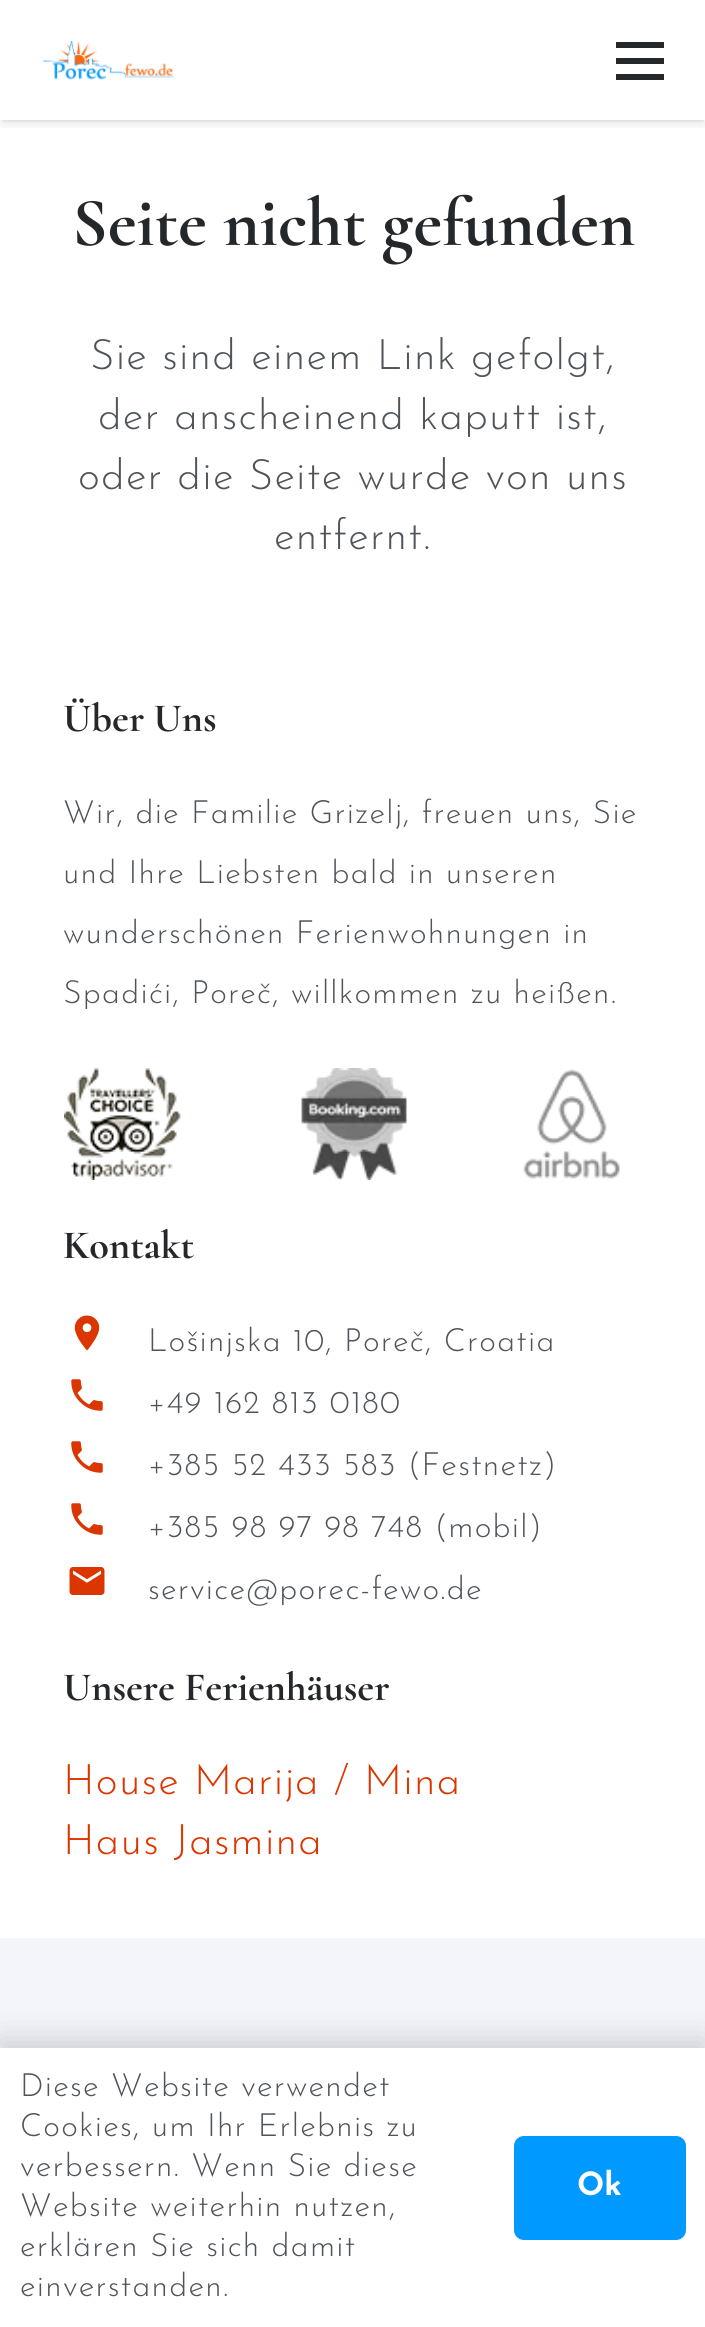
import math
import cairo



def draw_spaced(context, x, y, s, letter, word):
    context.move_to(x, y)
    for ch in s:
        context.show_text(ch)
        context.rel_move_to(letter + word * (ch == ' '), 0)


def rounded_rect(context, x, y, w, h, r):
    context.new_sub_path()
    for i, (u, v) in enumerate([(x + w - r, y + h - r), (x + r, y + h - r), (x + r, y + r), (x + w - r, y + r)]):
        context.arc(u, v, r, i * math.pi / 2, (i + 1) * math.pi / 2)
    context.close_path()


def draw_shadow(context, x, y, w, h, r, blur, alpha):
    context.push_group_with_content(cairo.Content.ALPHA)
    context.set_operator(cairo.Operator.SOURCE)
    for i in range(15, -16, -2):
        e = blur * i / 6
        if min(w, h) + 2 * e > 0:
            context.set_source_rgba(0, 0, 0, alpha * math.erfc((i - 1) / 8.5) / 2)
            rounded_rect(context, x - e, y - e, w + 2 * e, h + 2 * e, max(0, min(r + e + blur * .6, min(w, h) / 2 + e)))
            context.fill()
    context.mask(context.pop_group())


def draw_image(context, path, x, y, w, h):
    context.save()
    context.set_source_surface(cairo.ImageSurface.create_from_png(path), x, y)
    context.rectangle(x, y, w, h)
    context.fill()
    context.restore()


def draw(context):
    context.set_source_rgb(243 / 255, 245 / 255, 251 / 255)
    context.paint()
    context.set_source_rgb(1, 1, 1)
    context.rectangle(0, 0, 705, 1938)
    context.fill()
    context.save()
    context.rectangle(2, 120, 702, 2)
    context.clip()
    context.set_source_rgb(0, 0, 0)
    draw_shadow(context, 2, 6, 702, 116, 0, 1, 0.05)
    context.restore()
    context.save()
    context.rectangle(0, 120, 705, 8)
    context.clip()
    context.set_source_rgb(0, 0, 0)
    draw_shadow(context, 2, 8, 702, 116, 0, 5, 0.1)
    context.restore()
    draw_image(context, "images/1.png", 43, 41, 131, 39)
    context.set_source_rgb(37 / 255, 40 / 255, 43 / 255)
    context.rectangle(616, 58, 48, 6)
    context.fill()
    context.rectangle(616, 42, 48, 6)
    context.fill()
    context.rectangle(616, 74, 48, 6)
    context.fill()
    draw_image(context, "images/2.png", 64, 1068, 556, 112)
    draw_image(context, "images/3.png", 74, 1315, 26, 36)
    draw_image(context, "images/4.png", 71, 1379, 32, 32)
    draw_image(context, "images/4.png", 71, 1441, 32, 32)
    draw_image(context, "images/4.png", 71, 1503, 32, 32)
    draw_image(context, "images/5.png", 69, 1567, 36, 28)
    context.set_source_rgb(0, 0, 0)
    draw_shadow(context, 0, 2038, 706, 280, 0, 15, 0.15)
    context.set_source_rgb(1, 1, 1)
    context.rectangle(0, 2048, 705, 279)
    context.fill()
    context.set_source_rgb(0, 153 / 255, 1)
    rounded_rect(context, 514, 2136, 172, 104, 10)
    context.fill()
    context.select_font_face("Cormorant", cairo.FontSlant.NORMAL, cairo.FontWeight.BOLD)
    context.set_font_size(69.25)
    context.set_source_rgb(37 / 255, 40 / 255, 43 / 255)
    context.move_to(72, 245)
    context.show_text("Seite nicht gefunden")
    context.select_font_face("Josefin Sans Light")
    context.set_font_size(42)
    context.set_source_rgb(79 / 255, 84 / 255, 89 / 255)
    draw_spaced(context, 90, 369, "Sie sind einem Link gefolgt,", 1.25, 0)
    draw_spaced(context, 98, 429, "der anscheinend kaputt ist,", 1.25, 0)
    draw_spaced(context, 78, 489, "oder die Seite wurde von uns", 1.25, 0)
    draw_spaced(context, 274, 549, "entfernt.", 1.25, 0)
    context.select_font_face("Cormorant", cairo.FontSlant.NORMAL, cairo.FontWeight.BOLD)
    context.set_font_size(40.25)
    context.set_source_rgb(37 / 255, 40 / 255, 43 / 255)
    context.move_to(63, 731)
    context.show_text("Über Uns")
    context.select_font_face("Josefin Sans Light")
    context.set_font_size(32)
    context.set_source_rgb(79 / 255, 84 / 255, 89 / 255)
    draw_spaced(context, 63, 823, "Wir, die Familie Grizelj, freuen uns, Sie", 1.25, 0)
    draw_spaced(context, 63, 883, "und Ihre Liebsten bald in unseren", 1.25, 0)
    draw_spaced(context, 63, 943, "wunderschönen Ferienwohnungen in", 1.25, 0)
    draw_spaced(context, 63, 1003, "Spadići, Poreč, willkommen zu heißen.", 1.25, 0)
    context.select_font_face("Cormorant", cairo.FontSlant.NORMAL, cairo.FontWeight.BOLD)
    context.set_font_size(40.25)
    context.set_source_rgb(37 / 255, 40 / 255, 43 / 255)
    context.move_to(63, 1258)
    context.show_text("Kontakt")
    context.select_font_face("Josefin Sans Light")
    context.set_font_size(32)
    context.set_source_rgb(79 / 255, 84 / 255, 89 / 255)
    draw_spaced(context, 148, 1351, "Lošinjska 10, Poreč, Croatia", 1.25, 0)
    draw_spaced(context, 148, 1413, "+49 162 813 0180", 1.25, 0)
    draw_spaced(context, 148, 1475, "+385 52 433 583 (Festnetz)", 1.25, 0)
    draw_spaced(context, 148, 1537, "+385 98 97 98 748 (mobil)", 1.25, 0)
    draw_spaced(context, 148, 1599, "service@porec-fewo.de", 1.25, 0)
    context.select_font_face("Cormorant", cairo.FontSlant.NORMAL, cairo.FontWeight.BOLD)
    context.set_font_size(40.25)
    context.set_source_rgb(37 / 255, 40 / 255, 43 / 255)
    context.move_to(63, 1700)
    context.show_text("Unsere Ferienhäuser")
    context.select_font_face("Josefin Sans Light")
    context.set_font_size(42)
    context.set_source_rgb(219 / 255, 53 / 255, 0)
    draw_spaced(context, 63, 1794, "House Marija / Mina", 1.25, 0)
    draw_spaced(context, 63, 1854, "Haus Jasmina", 1.25, 0)
    context.set_font_size(32)
    context.set_source_rgb(79 / 255, 84 / 255, 89 / 255)
    draw_spaced(context, 20, 2096, "Diese Website verwendet", 1.25, 0)
    draw_spaced(context, 20, 2136, "Cookies, um Ihr Erlebnis zu", 1.25, 0)
    draw_spaced(context, 20, 2176, "verbessern. Wenn Sie diese", 1.25, 0)
    draw_spaced(context, 20, 2216, "Website weiterhin nutzen,", 1.25, 0)
    draw_spaced(context, 20, 2256, "erklären Sie sich damit", 1.25, 0)
    draw_spaced(context, 20, 2296, "einverstanden.", 1.25, 0)
    context.select_font_face("Josefin Sans", cairo.FontSlant.NORMAL, cairo.FontWeight.BOLD)
    context.set_source_rgb(1, 1, 1)
    context.move_to(577, 2195)
    context.show_text("Ok")


surface = cairo.ImageSurface(cairo.Format.RGB24, 705, 2327)
context = cairo.Context(surface)
options = cairo.FontOptions()
options.set_hint_metrics(cairo.HintMetrics.OFF)
options.set_hint_style(cairo.HintStyle.NONE)
context.set_font_options(options)
context.set_miter_limit(4)
draw(context)
surface.write_to_png("out.png")
